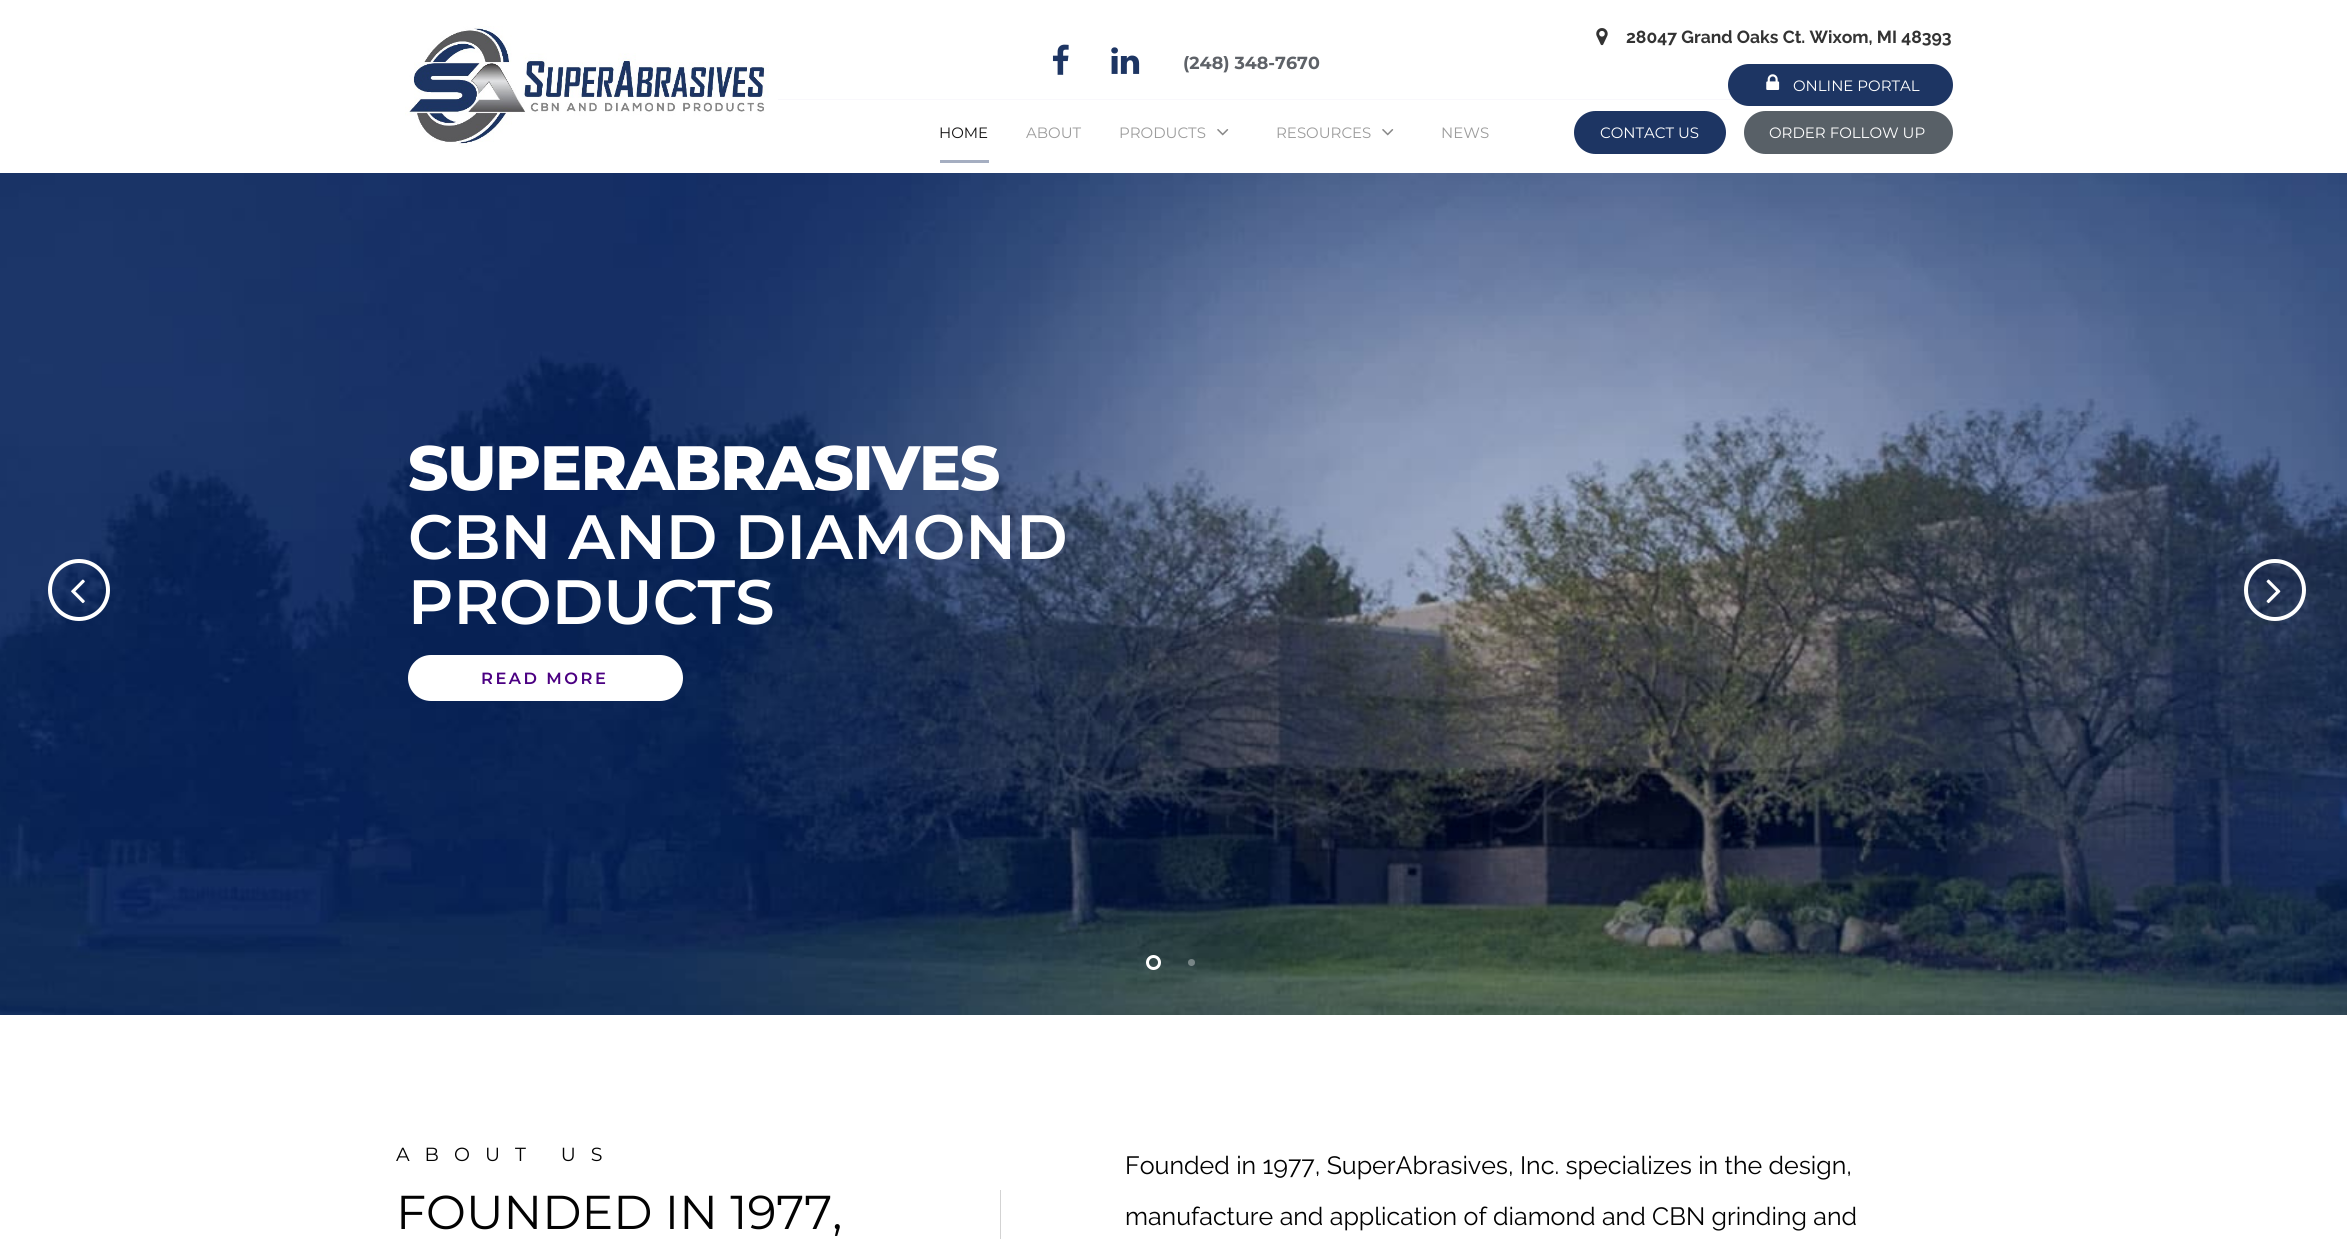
import math
import cairo



def draw_spaced(context, x, y, s, letter, word):
    context.move_to(x, y)
    for ch in s:
        context.show_text(ch)
        context.rel_move_to(letter + word * (ch == ' '), 0)


def rounded_rect(context, x, y, w, h, r):
    context.new_sub_path()
    for i, (u, v) in enumerate([(x + w - r, y + h - r), (x + r, y + h - r), (x + r, y + r), (x + w - r, y + r)]):
        context.arc(u, v, r, i * math.pi / 2, (i + 1) * math.pi / 2)
    context.close_path()


def draw_image(context, path, x, y, w, h):
    context.save()
    context.set_source_surface(cairo.ImageSurface.create_from_png(path), x, y)
    context.rectangle(x, y, w, h)
    context.fill()
    context.restore()


def draw(context):
    context.set_source_rgb(1, 1, 1)
    context.paint()
    draw_image(context, "images/1.png", 405, 26, 364, 121)
    draw_image(context, "images/2.png", 1596, 28, 12, 18)
    draw_image(context, "images/3.png", 1052, 44, 17, 31)
    draw_image(context, "images/4.png", 1111, 47, 29, 27)
    context.set_source_rgb(249 / 255, 248 / 255, 252 / 255)
    context.rectangle(778, 99, 1175, 1)
    context.fill()
    context.set_source_rgb(29 / 255, 53 / 255, 99 / 255)
    rounded_rect(context, 1728, 64, 225, 42, 21)
    context.fill()
    draw_image(context, "images/5.png", 1766, 74, 14, 16)
    context.set_source_rgb(165 / 255, 174 / 255, 193 / 255)
    context.rectangle(940, 160, 49, 3)
    context.fill()
    draw_image(context, "images/6.png", 1217, 129, 12, 7)
    draw_image(context, "images/6.png", 1382, 129, 12, 7)
    context.set_source_rgb(29 / 255, 53 / 255, 99 / 255)
    rounded_rect(context, 1574, 111, 152, 43, 21.5)
    context.fill()
    context.set_source_rgb(88 / 255, 96 / 255, 103 / 255)
    rounded_rect(context, 1744, 111, 209, 43, 21.5)
    context.fill()
    draw_image(context, "images/8.png", 0, 173, 2347, 842)
    context.arc(79, 590, 29, 0, 2 * math.pi)
    context.set_source_rgb(1, 1, 1)
    context.set_line_width(4)
    context.stroke()
    draw_image(context, "images/7.png", 71, 579, 14, 25)
    rounded_rect(context, 408, 655, 275, 46, 23)
    context.fill()
    context.arc(2275, 590, 29, 0, 2 * math.pi)
    context.stroke()
    draw_image(context, "images/9.png", 2266, 579, 15, 25)
    context.arc(1153.5, 962.5, 6, 0, 2 * math.pi)
    context.set_line_width(3)
    context.stroke()
    context.set_source_rgba(1, 1, 1, 0.35)
    context.arc(1191.5, 962.5, 3.5, 0, 2 * math.pi)
    context.fill()
    context.set_source_rgb(211 / 255, 211 / 255, 211 / 255)
    context.rectangle(1000, 1190, 1, 49)
    context.fill()
    context.select_font_face("Raleway", cairo.FontSlant.NORMAL, cairo.FontWeight.BOLD)
    context.set_font_size(17.5)
    context.set_source_rgb(51 / 255, 51 / 255, 51 / 255)
    context.move_to(1626, 43)
    context.show_text("28047 Grand Oaks Ct. Wixom, MI 48393")
    context.select_font_face("Montserrat", cairo.FontSlant.NORMAL, cairo.FontWeight.BOLD)
    context.set_source_rgb(94 / 255, 98 / 255, 104 / 255)
    context.move_to(1183, 69)
    context.show_text("(248) 348-7670")
    context.select_font_face("Montserrat")
    context.set_font_size(15)
    context.set_source_rgb(1, 1, 1)
    context.move_to(1793, 91)
    context.show_text("ONLINE PORTAL")
    context.set_source_rgb(20 / 255, 19 / 255, 19 / 255)
    context.move_to(939, 138)
    context.show_text("HOME")
    context.set_source_rgb(156 / 255, 156 / 255, 156 / 255)
    context.move_to(1026, 138)
    context.show_text("ABOUT")
    context.move_to(1119, 138)
    context.show_text("PRODUCTS")
    context.move_to(1276, 138)
    context.show_text("RESOURCES")
    context.move_to(1441, 138)
    context.show_text("NEWS")
    context.set_source_rgb(1, 1, 1)
    context.move_to(1600, 138)
    context.show_text("CONTACT US")
    context.move_to(1769, 138)
    context.show_text("ORDER FOLLOW UP")
    context.select_font_face("Montserrat ExtraBold")
    context.set_font_size(62.5)
    draw_spaced(context, 408, 490, "SUPERABRASIVES", -1.25, 0)
    context.select_font_face("Montserrat SemiBold")
    context.move_to(408, 559)
    context.show_text("CBN AND DIAMOND")
    context.move_to(408, 624)
    context.show_text("PRODUCTS")
    context.set_font_size(16.25)
    context.set_source_rgb(75 / 255, 0, 130 / 255)
    draw_spaced(context, 481, 684, "READ MORE", 2.5, 0)
    context.select_font_face("Montserrat")
    context.set_font_size(19)
    context.set_source_rgb(2 / 255, 2 / 255, 2 / 255)
    draw_spaced(context, 396, 1161, "ABOUT US", 15, 0)
    context.set_font_size(47.5)
    context.move_to(396, 1229)
    context.show_text("FOUNDED IN 1977,")
    context.select_font_face("Raleway")
    context.set_font_size(25)
    context.move_to(1125, 1174)
    context.show_text("Founded in 1977, SuperAbrasives, Inc. specializes in the design,")
    context.move_to(1125, 1225)
    context.show_text("manufacture and application of diamond and CBN grinding and")


surface = cairo.ImageSurface(cairo.Format.RGB24, 2347, 1239)
context = cairo.Context(surface)
options = cairo.FontOptions()
options.set_hint_metrics(cairo.HintMetrics.OFF)
options.set_hint_style(cairo.HintStyle.NONE)
context.set_font_options(options)
context.set_miter_limit(4)
draw(context)
surface.write_to_png("out.png")
